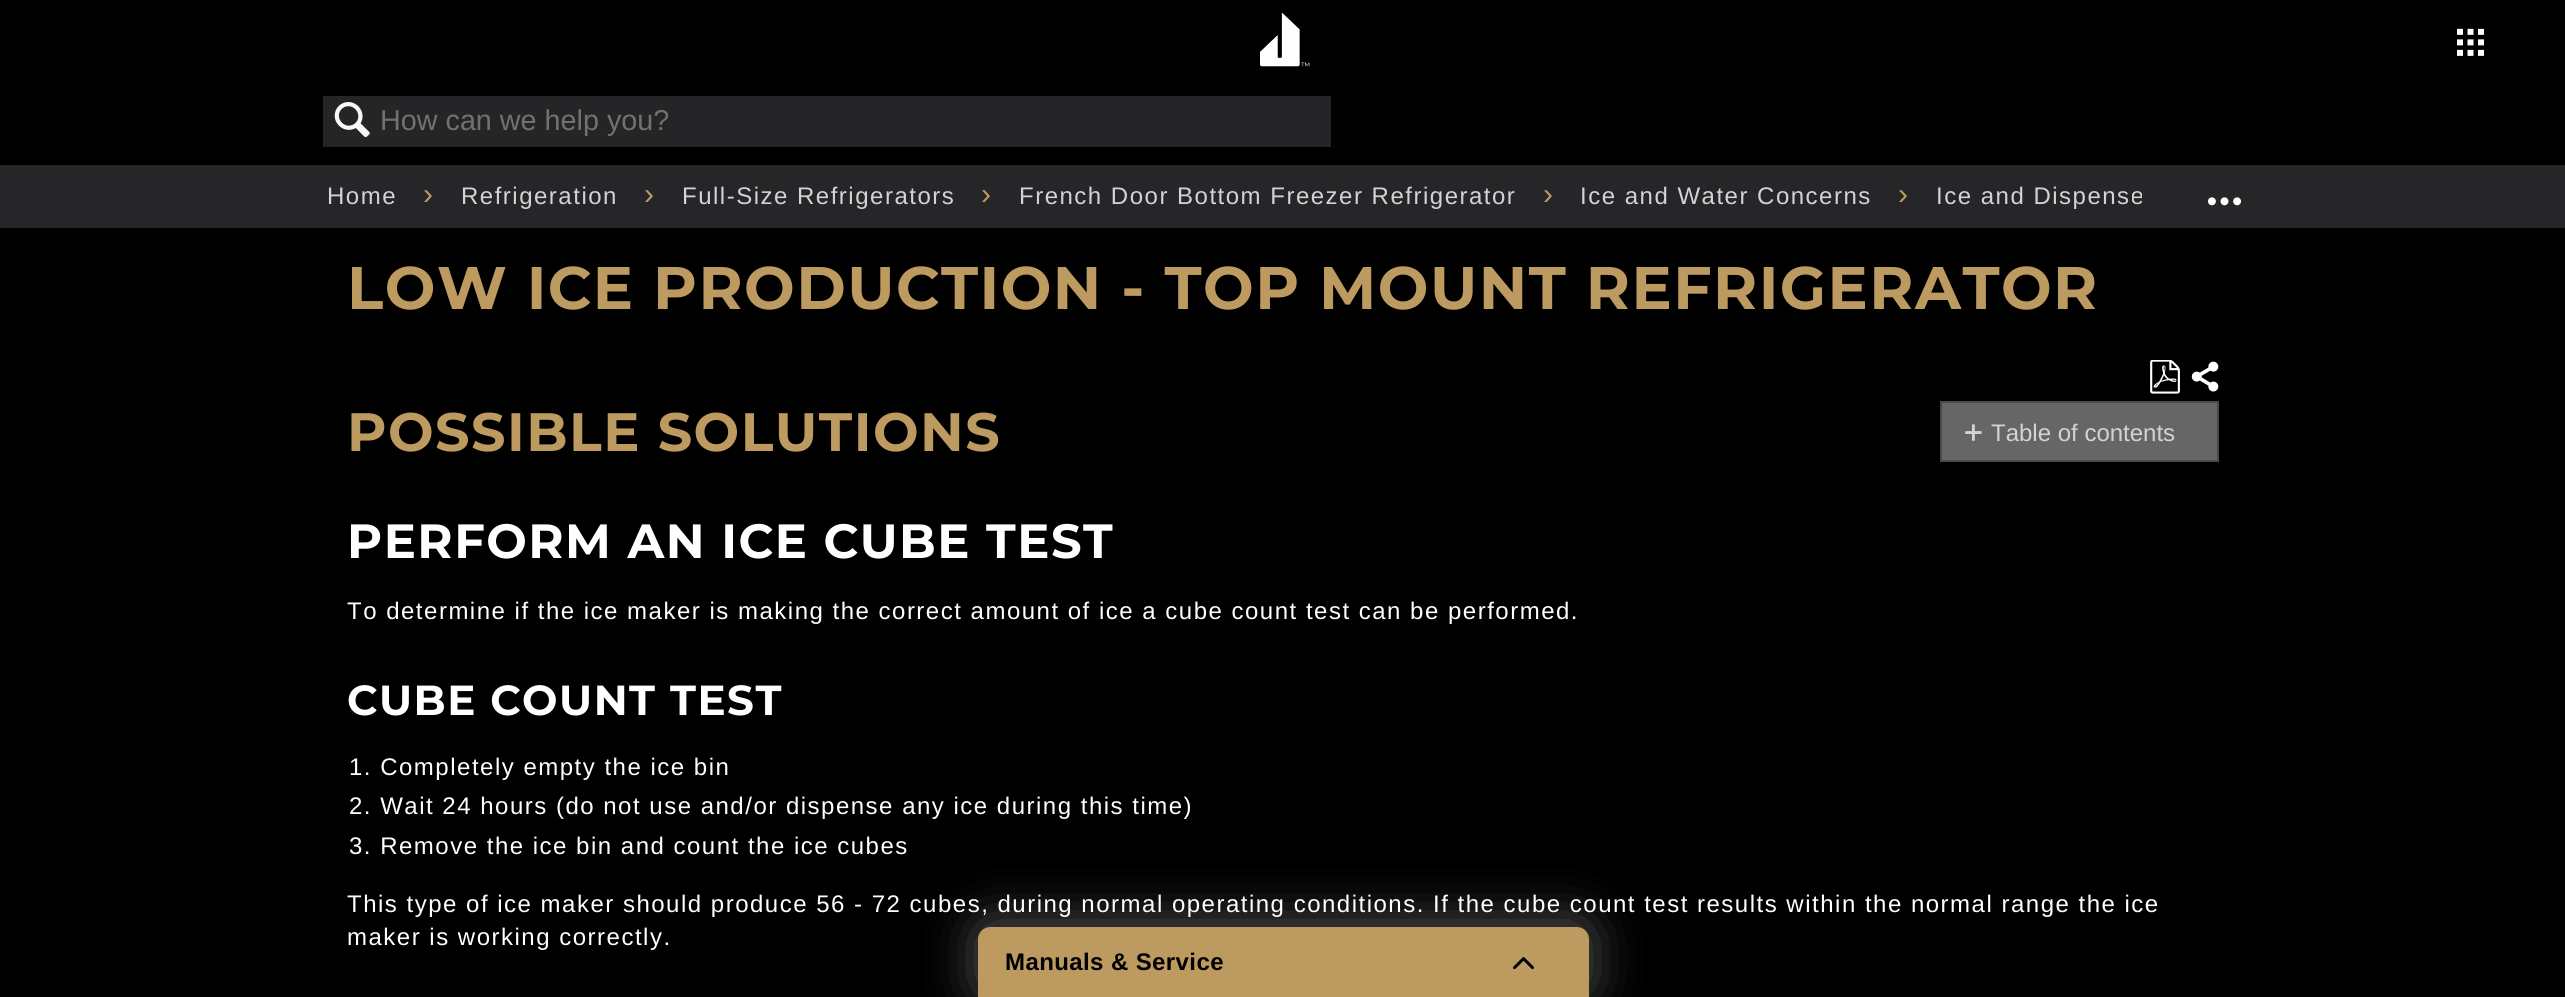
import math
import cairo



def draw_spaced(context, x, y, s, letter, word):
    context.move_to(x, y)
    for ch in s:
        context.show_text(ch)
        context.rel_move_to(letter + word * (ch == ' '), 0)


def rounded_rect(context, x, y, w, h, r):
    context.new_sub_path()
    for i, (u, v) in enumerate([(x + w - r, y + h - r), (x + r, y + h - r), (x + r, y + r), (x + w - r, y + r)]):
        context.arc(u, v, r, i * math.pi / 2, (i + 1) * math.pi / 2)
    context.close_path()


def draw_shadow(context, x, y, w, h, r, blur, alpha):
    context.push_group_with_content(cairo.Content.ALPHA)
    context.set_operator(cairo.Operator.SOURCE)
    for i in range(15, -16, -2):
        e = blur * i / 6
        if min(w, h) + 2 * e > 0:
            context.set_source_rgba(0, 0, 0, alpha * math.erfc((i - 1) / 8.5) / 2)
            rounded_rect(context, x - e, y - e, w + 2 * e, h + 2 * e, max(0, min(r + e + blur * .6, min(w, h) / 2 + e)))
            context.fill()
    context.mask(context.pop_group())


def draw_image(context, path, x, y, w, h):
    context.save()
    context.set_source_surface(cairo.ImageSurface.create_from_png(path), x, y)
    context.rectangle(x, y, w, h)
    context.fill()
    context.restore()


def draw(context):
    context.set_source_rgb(0, 0, 0)
    context.paint()
    draw_image(context, "images/1.png", 1260, 12, 50, 55)
    draw_image(context, "images/2.png", 2457, 28, 27, 28)
    context.set_source_rgb(37 / 255, 37 / 255, 39 / 255)
    context.rectangle(323, 96, 1008, 51)
    context.fill()
    draw_image(context, "images/3.png", 334, 102, 36, 36)
    context.set_source_rgb(38 / 255, 38 / 255, 40 / 255)
    context.rectangle(0, 165, 2565, 63)
    context.fill()
    draw_image(context, "images/4.png", 2207, 197, 35, 9)
    draw_image(context, "images/5.png", 2150, 360, 30, 34)
    draw_image(context, "images/6.png", 2191, 361, 28, 31)
    context.set_source_rgb(189 / 255, 155 / 255, 96 / 255)
    context.new_path()
    context.move_to(990, 927)
    context.line_to(1577, 927)
    context.curve_to(1583.5, 927, 1589, 932.5, 1589, 939)
    context.line_to(1589, 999)
    context.line_to(978, 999)
    context.line_to(978, 939)
    context.curve_to(978, 932.5, 983.5, 927, 990, 927)
    context.close_path()
    context.fill()
    context.save()
    context.set_fill_rule(cairo.FillRule.EVEN_ODD)
    context.new_path()
    context.move_to(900, 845)
    context.line_to(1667, 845)
    context.line_to(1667, 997)
    context.line_to(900, 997)
    context.close_path()
    context.move_to(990, 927)
    context.line_to(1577, 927)
    context.curve_to(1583.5, 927, 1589, 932.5, 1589, 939)
    context.line_to(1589, 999)
    context.line_to(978, 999)
    context.line_to(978, 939)
    context.curve_to(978, 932.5, 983.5, 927, 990, 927)
    context.close_path()
    context.clip()
    context.set_source_rgb(1, 1, 1)
    draw_shadow(context, 978, 923, 611, 72, 12, 25.5, 0.35)
    context.restore()
    draw_image(context, "images/7.png", 1513, 957, 21, 13)
    context.set_source_rgb(102 / 255, 102 / 255, 102 / 255)
    context.rectangle(1941, 402, 277, 59)
    context.fill_preserve()
    context.set_source_rgb(74 / 255, 74 / 255, 74 / 255)
    context.stroke()
    draw_image(context, "images/8.png", 1965, 424, 17, 17)
    context.select_font_face("Liberation Sans")
    context.set_font_size(28.75)
    context.set_source_rgb(113 / 255, 113 / 255, 113 / 255)
    context.move_to(380, 130)
    context.show_text("How can we help you?")
    context.set_font_size(24)
    context.set_source_rgb(209 / 255, 211 / 255, 212 / 255)
    draw_spaced(context, 327, 204, "Home", 1.5, 0)
    context.set_font_size(30)
    context.set_source_rgb(189 / 255, 155 / 255, 96 / 255)
    draw_spaced(context, 423, 204, "›", 1.5, 0)
    context.set_font_size(24)
    context.set_source_rgb(209 / 255, 211 / 255, 212 / 255)
    draw_spaced(context, 461, 204, "Refrigeration", 1.5, 0)
    context.set_font_size(30)
    context.set_source_rgb(189 / 255, 155 / 255, 96 / 255)
    draw_spaced(context, 644, 204, "›", 1.5, 0)
    context.set_font_size(24)
    context.set_source_rgb(209 / 255, 211 / 255, 212 / 255)
    draw_spaced(context, 682, 204, "Full-Size Refrigerators", 1.5, 0)
    context.set_font_size(30)
    context.set_source_rgb(189 / 255, 155 / 255, 96 / 255)
    draw_spaced(context, 981, 204, "›", 1.5, 0)
    context.set_font_size(24)
    context.set_source_rgb(209 / 255, 211 / 255, 212 / 255)
    draw_spaced(context, 1019, 204, "French Door Bottom Freezer Refrigerator", 1.5, 0)
    context.set_font_size(30)
    context.set_source_rgb(189 / 255, 155 / 255, 96 / 255)
    draw_spaced(context, 1543, 204, "›", 1.5, 0)
    context.set_font_size(24)
    context.set_source_rgb(209 / 255, 211 / 255, 212 / 255)
    draw_spaced(context, 1580, 204, "Ice and Water Concerns", 1.5, 0)
    context.set_font_size(30)
    context.set_source_rgb(189 / 255, 155 / 255, 96 / 255)
    draw_spaced(context, 1898, 204, "›", 1.5, 0)
    context.save()
    context.rectangle(327, 171, 1815, 51)
    context.clip()
    context.set_font_size(24)
    context.set_source_rgb(209 / 255, 211 / 255, 212 / 255)
    draw_spaced(context, 1936, 204, "Ice and Dispense", 1.5, 0)
    context.restore()
    context.select_font_face("Montserrat", cairo.FontSlant.NORMAL, cairo.FontWeight.BOLD)
    context.set_font_size(60)
    draw_spaced(context, 347, 309, "LOW ICE PRODUCTION - TOP MOUNT REFRIGERATOR", 1.5, 0)
    context.set_font_size(54)
    draw_spaced(context, 347, 451, "POSSIBLE SOLUTIONS", 1.5, 0)
    context.set_font_size(48)
    context.set_source_rgb(1, 1, 1)
    draw_spaced(context, 347, 558, "PERFORM AN ICE CUBE TEST", 1.5, 0)
    context.select_font_face("Liberation Sans")
    context.set_font_size(24)
    draw_spaced(context, 347, 619, "To determine if the ice maker is making the correct amount of ice a cube count test can be performed.", 1.5, 0)
    context.select_font_face("Montserrat", cairo.FontSlant.NORMAL, cairo.FontWeight.BOLD)
    context.set_font_size(42)
    draw_spaced(context, 347, 715, "CUBE COUNT TEST", 1.5, 0)
    context.select_font_face("Liberation Sans")
    context.set_font_size(24)
    draw_spaced(context, 349, 775, "1. Completely empty the ice bin", 1.5, 0)
    draw_spaced(context, 349, 814, "2. Wait 24 hours (do not use and/or dispense any ice during this time)", 1.5, 0)
    draw_spaced(context, 349, 854, "3. Remove the ice bin and count the ice cubes", 1.5, 0)
    draw_spaced(context, 347, 912, "This type of ice maker should produce 56 - 72 cubes, during normal operating conditions. If the cube count test results within the normal range the ice", 1.5, 0)
    draw_spaced(context, 347, 945, "maker is working correctly.", 1.5, 0)
    context.select_font_face("Liberation Sans", cairo.FontSlant.NORMAL, cairo.FontWeight.BOLD)
    context.set_source_rgb(0, 0, 0)
    draw_spaced(context, 1005, 970, "Manuals & Service", 0.4, 0)
    context.select_font_face("Liberation Sans")
    context.set_source_rgb(209 / 255, 211 / 255, 212 / 255)
    context.move_to(1991, 441)
    context.show_text("Table of contents")


surface = cairo.ImageSurface(cairo.Format.RGB24, 2565, 997)
context = cairo.Context(surface)
options = cairo.FontOptions()
options.set_hint_metrics(cairo.HintMetrics.OFF)
options.set_hint_style(cairo.HintStyle.NONE)
context.set_font_options(options)
context.set_miter_limit(4)
draw(context)
surface.write_to_png("out.png")
